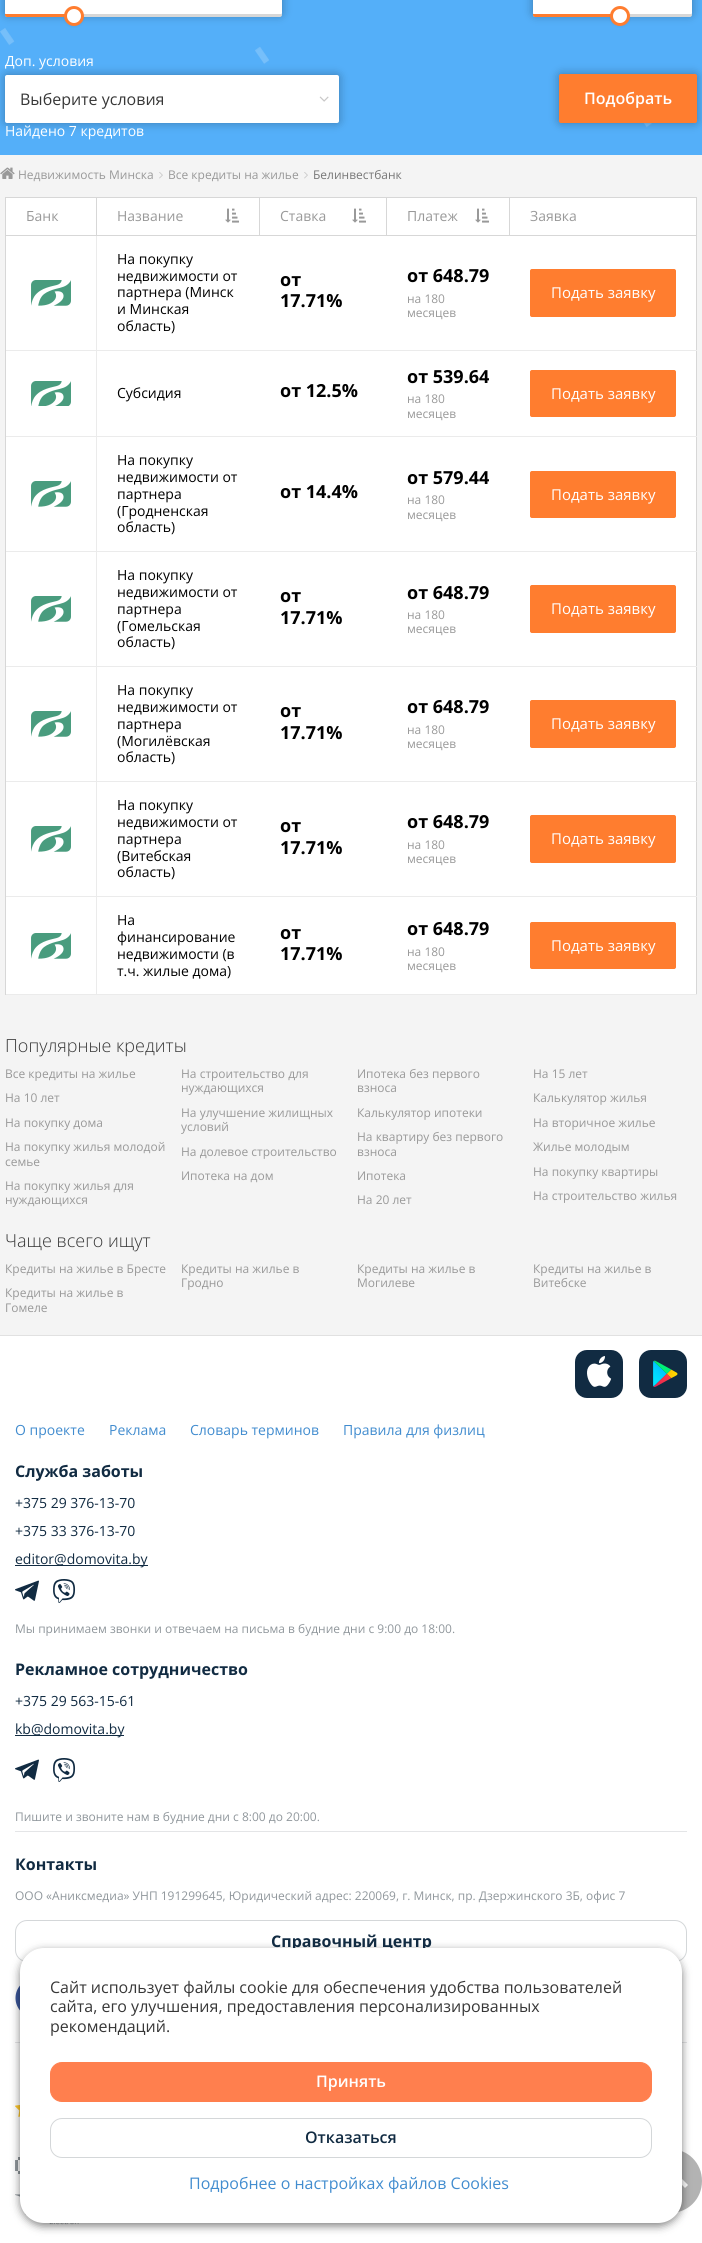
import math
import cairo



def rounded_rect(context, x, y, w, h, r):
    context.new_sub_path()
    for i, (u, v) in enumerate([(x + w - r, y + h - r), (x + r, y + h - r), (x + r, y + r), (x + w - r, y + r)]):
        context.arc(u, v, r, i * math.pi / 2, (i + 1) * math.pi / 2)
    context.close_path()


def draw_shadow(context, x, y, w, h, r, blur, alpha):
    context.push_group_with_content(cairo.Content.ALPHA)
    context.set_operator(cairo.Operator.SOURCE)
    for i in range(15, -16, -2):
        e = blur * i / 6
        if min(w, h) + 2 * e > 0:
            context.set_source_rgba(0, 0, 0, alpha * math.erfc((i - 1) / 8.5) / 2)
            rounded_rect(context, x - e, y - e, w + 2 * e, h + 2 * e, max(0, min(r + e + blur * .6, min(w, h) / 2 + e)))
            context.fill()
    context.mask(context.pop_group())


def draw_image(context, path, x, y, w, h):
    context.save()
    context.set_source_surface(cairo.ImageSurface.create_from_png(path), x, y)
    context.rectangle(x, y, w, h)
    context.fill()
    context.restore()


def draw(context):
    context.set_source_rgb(244 / 255, 244 / 255, 244 / 255)
    context.paint()
    draw_image(context, "images/1.png", 0, 0, 702, 155)
    context.set_source_rgb(0, 0, 0)
    draw_shadow(context, 5, -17, 277, 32, 2, 5, 0.3)
    context.set_source_rgb(1, 1, 1)
    rounded_rect(context, 5, -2, 277, 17, 2)
    context.fill()
    context.set_source_rgb(215 / 255, 215 / 255, 215 / 255)
    context.new_path()
    context.move_to(5, 14)
    context.line_to(282, 14)
    context.line_to(282, 15)
    context.curve_to(282, 16, 281, 17, 280, 17)
    context.line_to(7, 17)
    context.curve_to(6, 17, 5, 16, 5, 15)
    context.close_path()
    context.fill()
    context.set_source_rgb(1, 125 / 255, 47 / 255)
    context.new_path()
    context.move_to(5, 14)
    context.line_to(74, 14)
    context.line_to(74, 17)
    context.line_to(7, 17)
    context.curve_to(6, 17, 5, 16, 5, 15)
    context.close_path()
    context.fill()
    context.set_source_rgb(0, 0, 0)
    draw_shadow(context, 64, 7, 20, 20, 10, 1, 0.05)
    context.set_source_rgb(1, 1, 1)
    context.arc(74, 16, 8.5, 0, 2 * math.pi)
    context.fill_preserve()
    context.set_source_rgb(1, 125 / 255, 47 / 255)
    context.set_line_width(3)
    context.stroke()
    context.set_source_rgb(0, 0, 0)
    draw_shadow(context, 533, -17, 159, 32, 2, 5, 0.3)
    context.set_source_rgb(1, 1, 1)
    rounded_rect(context, 533, -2, 159, 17, 2)
    context.fill()
    context.set_source_rgb(215 / 255, 215 / 255, 215 / 255)
    context.new_path()
    context.move_to(533, 14)
    context.line_to(692, 14)
    context.line_to(692, 15)
    context.curve_to(692, 16, 691, 17, 690, 17)
    context.line_to(535, 17)
    context.curve_to(534, 17, 533, 16, 533, 15)
    context.close_path()
    context.fill()
    context.set_source_rgb(1, 125 / 255, 47 / 255)
    context.new_path()
    context.move_to(533, 14)
    context.line_to(620, 14)
    context.line_to(620, 17)
    context.line_to(535, 17)
    context.curve_to(534, 17, 533, 16, 533, 15)
    context.close_path()
    context.fill()
    context.set_source_rgb(0, 0, 0)
    draw_shadow(context, 610, 7, 20, 20, 10, 1, 0.05)
    context.set_source_rgb(1, 1, 1)
    context.arc(620, 16, 8.5, 0, 2 * math.pi)
    context.fill_preserve()
    context.set_source_rgb(1, 125 / 255, 47 / 255)
    context.stroke()
    context.set_source_rgb(0, 0, 0)
    draw_shadow(context, 5, 75, 334, 48, 2, 5, 0.3)
    context.set_source_rgb(1, 1, 1)
    rounded_rect(context, 5, 75, 334, 48, 2)
    context.fill()
    draw_image(context, "images/2.png", 319, 96, 10, 6)
    context.set_source_rgb(0, 0, 0)
    draw_shadow(context, 559, 74, 138, 49, 2, 5, 0.3)
    context.set_source_rgb(1, 125 / 255, 47 / 255)
    rounded_rect(context, 559.5, 74.5, 137, 48, 1.5)
    context.fill_preserve()
    context.set_line_width(1)
    context.stroke()
    draw_image(context, "images/3.png", 0, 167, 15, 12)
    draw_image(context, "images/4.png", 159, 172, 4, 7)
    draw_image(context, "images/4.png", 304, 172, 4, 7)
    context.set_source_rgb(1, 1, 1)
    context.rectangle(6, 198, 690, 796)
    context.fill()
    context.set_source_rgb(215 / 255, 215 / 255, 215 / 255)
    context.rectangle(5, 197, 692, 1)
    context.fill()
    context.rectangle(696, 197, 1, 798)
    context.fill()
    context.rectangle(5, 197, 1, 798)
    context.fill()
    context.rectangle(509, 235, 188, 1)
    context.fill()
    context.rectangle(509, 197, 1, 39)
    context.fill()
    context.rectangle(386, 235, 124, 1)
    context.fill()
    context.rectangle(386, 197, 1, 39)
    context.fill()
    context.rectangle(259, 235, 128, 1)
    context.fill()
    context.rectangle(259, 197, 1, 39)
    context.fill()
    context.set_source_rgb(235 / 255, 235 / 255, 235 / 255)
    context.rectangle(96, 994, 601, 1)
    context.fill()
    context.rectangle(96, 896, 1, 99)
    context.fill()
    context.rectangle(96, 896, 601, 1)
    context.fill()
    context.rectangle(96, 781, 1, 116)
    context.fill()
    context.rectangle(96, 781, 601, 1)
    context.fill()
    context.rectangle(96, 666, 1, 116)
    context.fill()
    context.rectangle(96, 666, 601, 1)
    context.fill()
    context.rectangle(96, 551, 1, 116)
    context.fill()
    context.rectangle(96, 551, 601, 1)
    context.fill()
    context.rectangle(96, 436, 1, 116)
    context.fill()
    context.rectangle(96, 436, 601, 1)
    context.fill()
    context.rectangle(96, 350, 1, 87)
    context.fill()
    context.rectangle(96, 350, 601, 1)
    context.fill()
    context.rectangle(96, 235, 1, 116)
    context.fill()
    context.set_source_rgb(215 / 255, 215 / 255, 215 / 255)
    context.rectangle(96, 235, 164, 1)
    context.fill()
    context.rectangle(96, 197, 1, 39)
    context.fill()
    context.rectangle(6, 235, 91, 1)
    context.fill()
    draw_image(context, "images/5.png", 225, 208, 14, 15)
    draw_image(context, "images/5.png", 352, 208, 14, 15)
    draw_image(context, "images/5.png", 475, 208, 14, 15)
    context.set_source_rgb(235 / 255, 235 / 255, 235 / 255)
    context.rectangle(6, 350, 91, 1)
    context.fill()
    draw_image(context, "images/6.png", 31, 280, 40, 26)
    context.set_source_rgb(1, 125 / 255, 47 / 255)
    rounded_rect(context, 530.5, 269.5, 145, 47, 1.5)
    context.fill_preserve()
    context.stroke()
    context.set_source_rgb(235 / 255, 235 / 255, 235 / 255)
    context.rectangle(6, 436, 91, 1)
    context.fill()
    draw_image(context, "images/7.png", 31, 381, 40, 25)
    context.set_source_rgb(1, 125 / 255, 47 / 255)
    rounded_rect(context, 530.5, 370.5, 145, 46, 1.5)
    context.fill_preserve()
    context.stroke()
    context.set_source_rgb(235 / 255, 235 / 255, 235 / 255)
    context.rectangle(6, 551, 91, 1)
    context.fill()
    draw_image(context, "images/6.png", 31, 481, 40, 26)
    context.set_source_rgb(1, 125 / 255, 47 / 255)
    rounded_rect(context, 530.5, 471.5, 145, 46, 1.5)
    context.fill_preserve()
    context.stroke()
    context.set_source_rgb(235 / 255, 235 / 255, 235 / 255)
    context.rectangle(6, 666, 91, 1)
    context.fill()
    draw_image(context, "images/6.png", 31, 596, 40, 26)
    context.set_source_rgb(1, 125 / 255, 47 / 255)
    rounded_rect(context, 530.5, 585.5, 145, 47, 1.5)
    context.fill_preserve()
    context.stroke()
    context.set_source_rgb(235 / 255, 235 / 255, 235 / 255)
    context.rectangle(6, 781, 91, 1)
    context.fill()
    draw_image(context, "images/6.png", 31, 711, 40, 26)
    context.set_source_rgb(1, 125 / 255, 47 / 255)
    rounded_rect(context, 530.5, 700.5, 145, 47, 1.5)
    context.fill_preserve()
    context.stroke()
    context.set_source_rgb(235 / 255, 235 / 255, 235 / 255)
    context.rectangle(6, 896, 91, 1)
    context.fill()
    draw_image(context, "images/6.png", 31, 826, 40, 26)
    context.set_source_rgb(1, 125 / 255, 47 / 255)
    rounded_rect(context, 530.5, 815.5, 145, 47, 1.5)
    context.fill_preserve()
    context.stroke()
    context.set_source_rgb(235 / 255, 235 / 255, 235 / 255)
    context.rectangle(6, 994, 91, 1)
    context.fill()
    draw_image(context, "images/6.png", 31, 933, 40, 26)
    context.set_source_rgb(1, 125 / 255, 47 / 255)
    rounded_rect(context, 530.5, 922.5, 145, 46, 1.5)
    context.fill_preserve()
    context.stroke()
    context.set_source_rgb(1, 1, 1)
    context.rectangle(0, 1336, 702, 907)
    context.fill()
    context.set_source_rgb(225 / 255, 225 / 255, 225 / 255)
    context.rectangle(0, 1335, 702, 1)
    context.fill()
    draw_image(context, "images/8.png", 575, 1350, 48, 48)
    draw_image(context, "images/9.png", 639, 1350, 48, 48)
    context.set_source_rgb(17 / 255, 43 / 255, 66 / 255)
    context.rectangle(15, 1565, 133, 1)
    context.fill()
    draw_image(context, "images/10.png", 15, 1580, 24, 21)
    draw_image(context, "images/11.png", 53, 1579, 23, 24)
    context.rectangle(15, 1735, 109, 1)
    context.fill()
    draw_image(context, "images/10.png", 15, 1759, 24, 21)
    draw_image(context, "images/11.png", 53, 1758, 23, 24)
    context.set_source_rgb(228 / 255, 229 / 255, 231 / 255)
    context.rectangle(15, 1831, 672, 1)
    context.fill()
    rounded_rect(context, 15.5, 1920.5, 671, 41, 11.5)
    context.set_source_rgb(212 / 255, 215 / 255, 217 / 255)
    context.stroke()
    draw_image(context, "images/12.png", 15, 1985, 5, 26)
    context.set_source_rgb(228 / 255, 229 / 255, 231 / 255)
    context.rectangle(15, 2042, 672, 1)
    context.fill()
    draw_image(context, "images/13.png", 15, 2105, 5, 12)
    draw_image(context, "images/14.png", 15, 2157, 5, 17)
    draw_image(context, "images/15.png", 15, 2194, 64, 31)
    context.set_source_rgb(179 / 255, 179 / 255, 179 / 255)
    context.new_path()
    context.move_to(670, 2149)
    context.curve_to(652, 2149, 638, 2163, 638, 2181)
    context.curve_to(638, 2199, 652, 2213, 670, 2213)
    context.curve_to(688, 2213, 702, 2199, 702, 2181)
    context.curve_to(702, 2163, 688, 2149, 670, 2149)
    context.close_path()
    context.move_to(685, 2188)
    context.line_to(670, 2173)
    context.line_to(655, 2188)
    context.line_to(652, 2185)
    context.line_to(670, 2167)
    context.line_to(688, 2185)
    context.close_path()
    context.fill()
    context.set_source_rgb(0, 0, 0)
    draw_shadow(context, 20, 1951, 662, 275, 24, 4.5, 0.5)
    context.select_font_face("Open Sans")
    context.set_font_size(14)
    context.set_source_rgb(1, 1, 1)
    context.move_to(5, 66)
    context.show_text("Доп. условия")
    context.set_font_size(16)
    context.set_source_rgb(55 / 255, 55 / 255, 55 / 255)
    context.move_to(20, 105)
    context.show_text("Выберите условия")
    context.select_font_face("Open Sans SemiBold")
    context.set_source_rgb(1, 1, 1)
    context.move_to(584, 104)
    context.show_text("Подобрать")
    context.select_font_face("Open Sans")
    context.set_font_size(14)
    context.move_to(5, 136)
    context.show_text("Найдено 7 кредитов")
    context.set_font_size(12)
    context.set_source_rgb(153 / 255, 153 / 255, 153 / 255)
    context.move_to(18, 179)
    context.show_text("Недвижимость Минска")
    context.move_to(168, 179)
    context.show_text("Все кредиты на жилье")
    context.set_source_rgb(119 / 255, 119 / 255, 119 / 255)
    context.move_to(313, 179)
    context.show_text("Белинвестбанк")
    context.set_font_size(14)
    context.set_source_rgb(153 / 255, 153 / 255, 153 / 255)
    context.move_to(26, 221)
    context.show_text("Банк")
    context.move_to(117, 221)
    context.show_text("Название")
    context.move_to(280, 221)
    context.show_text("Ставка")
    context.move_to(407, 221)
    context.show_text("Платеж")
    context.move_to(530, 221)
    context.show_text("Заявка")
    context.set_source_rgb(0, 0, 0)
    context.move_to(117, 264)
    context.show_text("На покупку")
    context.move_to(117, 281)
    context.show_text("недвижимости от")
    context.move_to(117, 297)
    context.show_text("партнера (Минск")
    context.move_to(117, 314)
    context.show_text("и Минская")
    context.move_to(117, 331)
    context.show_text("область)")
    context.select_font_face("Open Sans", cairo.FontSlant.NORMAL, cairo.FontWeight.BOLD)
    context.set_font_size(18)
    context.move_to(280, 286)
    context.show_text("от")
    context.move_to(280, 307)
    context.show_text("17.71%")
    context.move_to(407, 282)
    context.show_text("от 648.79")
    context.select_font_face("Open Sans")
    context.set_font_size(12)
    context.set_source_rgb(153 / 255, 153 / 255, 153 / 255)
    context.move_to(407, 303)
    context.show_text("на 180")
    context.move_to(407, 317)
    context.show_text("месяцев")
    context.set_font_size(15)
    context.set_source_rgb(1, 1, 1)
    context.move_to(551, 298)
    context.show_text("Подать заявку")
    context.set_font_size(14)
    context.set_source_rgb(0, 0, 0)
    context.move_to(117, 398)
    context.show_text("Субсидия")
    context.select_font_face("Open Sans", cairo.FontSlant.NORMAL, cairo.FontWeight.BOLD)
    context.set_font_size(18)
    context.move_to(280, 397)
    context.show_text("от 12.5%")
    context.move_to(407, 383)
    context.show_text("от 539.64")
    context.select_font_face("Open Sans")
    context.set_font_size(12)
    context.set_source_rgb(153 / 255, 153 / 255, 153 / 255)
    context.move_to(407, 403)
    context.show_text("на 180")
    context.move_to(407, 418)
    context.show_text("месяцев")
    context.set_font_size(15)
    context.set_source_rgb(1, 1, 1)
    context.move_to(551, 399)
    context.show_text("Подать заявку")
    context.set_font_size(14)
    context.set_source_rgb(0, 0, 0)
    context.move_to(117, 465)
    context.show_text("На покупку")
    context.move_to(117, 482)
    context.show_text("недвижимости от")
    context.move_to(117, 499)
    context.show_text("партнера")
    context.move_to(117, 516)
    context.show_text("(Гродненская")
    context.move_to(117, 532)
    context.show_text("область)")
    context.select_font_face("Open Sans", cairo.FontSlant.NORMAL, cairo.FontWeight.BOLD)
    context.set_font_size(18)
    context.move_to(280, 498)
    context.show_text("от 14.4%")
    context.move_to(407, 484)
    context.show_text("от 579.44")
    context.select_font_face("Open Sans")
    context.set_font_size(12)
    context.set_source_rgb(153 / 255, 153 / 255, 153 / 255)
    context.move_to(407, 504)
    context.show_text("на 180")
    context.move_to(407, 519)
    context.show_text("месяцев")
    context.set_font_size(15)
    context.set_source_rgb(1, 1, 1)
    context.move_to(551, 500)
    context.show_text("Подать заявку")
    context.set_font_size(14)
    context.set_source_rgb(0, 0, 0)
    context.move_to(117, 580)
    context.show_text("На покупку")
    context.move_to(117, 597)
    context.show_text("недвижимости от")
    context.move_to(117, 614)
    context.show_text("партнера")
    context.move_to(117, 631)
    context.show_text("(Гомельская")
    context.move_to(117, 647)
    context.show_text("область)")
    context.select_font_face("Open Sans", cairo.FontSlant.NORMAL, cairo.FontWeight.BOLD)
    context.set_font_size(18)
    context.move_to(280, 602)
    context.show_text("от")
    context.move_to(280, 624)
    context.show_text("17.71%")
    context.move_to(407, 599)
    context.show_text("от 648.79")
    context.select_font_face("Open Sans")
    context.set_font_size(12)
    context.set_source_rgb(153 / 255, 153 / 255, 153 / 255)
    context.move_to(407, 619)
    context.show_text("на 180")
    context.move_to(407, 633)
    context.show_text("месяцев")
    context.set_font_size(15)
    context.set_source_rgb(1, 1, 1)
    context.move_to(551, 614)
    context.show_text("Подать заявку")
    context.set_font_size(14)
    context.set_source_rgb(0, 0, 0)
    context.move_to(117, 695)
    context.show_text("На покупку")
    context.move_to(117, 712)
    context.show_text("недвижимости от")
    context.move_to(117, 729)
    context.show_text("партнера")
    context.move_to(117, 746)
    context.show_text("(Могилёвская")
    context.move_to(117, 762)
    context.show_text("область)")
    context.select_font_face("Open Sans", cairo.FontSlant.NORMAL, cairo.FontWeight.BOLD)
    context.set_font_size(18)
    context.move_to(280, 717)
    context.show_text("от")
    context.move_to(280, 739)
    context.show_text("17.71%")
    context.move_to(407, 713)
    context.show_text("от 648.79")
    context.select_font_face("Open Sans")
    context.set_font_size(12)
    context.set_source_rgb(153 / 255, 153 / 255, 153 / 255)
    context.move_to(407, 734)
    context.show_text("на 180")
    context.move_to(407, 748)
    context.show_text("месяцев")
    context.set_font_size(15)
    context.set_source_rgb(1, 1, 1)
    context.move_to(551, 729)
    context.show_text("Подать заявку")
    context.set_font_size(14)
    context.set_source_rgb(0, 0, 0)
    context.move_to(117, 810)
    context.show_text("На покупку")
    context.move_to(117, 827)
    context.show_text("недвижимости от")
    context.move_to(117, 844)
    context.show_text("партнера")
    context.move_to(117, 861)
    context.show_text("(Витебская")
    context.move_to(117, 877)
    context.show_text("область)")
    context.select_font_face("Open Sans", cairo.FontSlant.NORMAL, cairo.FontWeight.BOLD)
    context.set_font_size(18)
    context.move_to(280, 832)
    context.show_text("от")
    context.move_to(280, 854)
    context.show_text("17.71%")
    context.move_to(407, 828)
    context.show_text("от 648.79")
    context.select_font_face("Open Sans")
    context.set_font_size(12)
    context.set_source_rgb(153 / 255, 153 / 255, 153 / 255)
    context.move_to(407, 849)
    context.show_text("на 180")
    context.move_to(407, 863)
    context.show_text("месяцев")
    context.set_font_size(15)
    context.set_source_rgb(1, 1, 1)
    context.move_to(551, 844)
    context.show_text("Подать заявку")
    context.set_font_size(14)
    context.set_source_rgb(0, 0, 0)
    context.move_to(117, 925)
    context.show_text("На")
    context.move_to(117, 942)
    context.show_text("финансирование")
    context.move_to(117, 959)
    context.show_text("недвижимости (в")
    context.move_to(117, 976)
    context.show_text("т.ч. жилые дома)")
    context.select_font_face("Open Sans", cairo.FontSlant.NORMAL, cairo.FontWeight.BOLD)
    context.set_font_size(18)
    context.move_to(280, 939)
    context.show_text("от")
    context.move_to(280, 960)
    context.show_text("17.71%")
    context.move_to(407, 935)
    context.show_text("от 648.79")
    context.select_font_face("Open Sans")
    context.set_font_size(12)
    context.set_source_rgb(153 / 255, 153 / 255, 153 / 255)
    context.move_to(407, 956)
    context.show_text("на 180")
    context.move_to(407, 970)
    context.show_text("месяцев")
    context.set_font_size(15)
    context.set_source_rgb(1, 1, 1)
    context.move_to(551, 951)
    context.show_text("Подать заявку")
    context.select_font_face("Open Sans Light")
    context.set_font_size(18)
    context.set_source_rgb(55 / 255, 55 / 255, 55 / 255)
    context.move_to(5, 1052)
    context.show_text("Популярные кредиты")
    context.select_font_face("Open Sans")
    context.set_font_size(12)
    context.set_source_rgb(153 / 255, 153 / 255, 153 / 255)
    context.move_to(5, 1078)
    context.show_text("Все кредиты на жилье")
    context.move_to(181, 1078)
    context.show_text("На строительство для")
    context.move_to(181, 1092)
    context.show_text("нуждающихся")
    context.move_to(357, 1078)
    context.show_text("Ипотека без первого")
    context.move_to(357, 1092)
    context.show_text("взноса")
    context.move_to(533, 1078)
    context.show_text("На 15 лет")
    context.move_to(5, 1102)
    context.show_text("На 10 лет")
    context.move_to(533, 1102)
    context.show_text("Калькулятор жилья")
    context.move_to(181, 1117)
    context.show_text("На улучшение жилищных")
    context.move_to(181, 1131)
    context.show_text("условий")
    context.move_to(357, 1117)
    context.show_text("Калькулятор ипотеки")
    context.move_to(5, 1127)
    context.show_text("На покупку дома")
    context.move_to(533, 1127)
    context.show_text("На вторичное жилье")
    context.move_to(5, 1151)
    context.show_text("На покупку жилья молодой")
    context.move_to(5, 1166)
    context.show_text("семье")
    context.move_to(181, 1156)
    context.show_text("На долевое строительство")
    context.move_to(357, 1141)
    context.show_text("На квартиру без первого")
    context.move_to(357, 1156)
    context.show_text("взноса")
    context.move_to(533, 1151)
    context.show_text("Жилье молодым")
    context.move_to(181, 1180)
    context.show_text("Ипотека на дом")
    context.move_to(357, 1180)
    context.show_text("Ипотека")
    context.move_to(533, 1176)
    context.show_text("На покупку квартиры")
    context.move_to(5, 1190)
    context.show_text("На покупку жилья для")
    context.move_to(5, 1204)
    context.show_text("нуждающихся")
    context.move_to(357, 1204)
    context.show_text("На 20 лет")
    context.move_to(533, 1200)
    context.show_text("На строительство жилья")
    context.select_font_face("Open Sans Light")
    context.set_font_size(18)
    context.set_source_rgb(55 / 255, 55 / 255, 55 / 255)
    context.move_to(5, 1247)
    context.show_text("Чаще всего ищут")
    context.select_font_face("Open Sans")
    context.set_font_size(12)
    context.set_source_rgb(153 / 255, 153 / 255, 153 / 255)
    context.move_to(5, 1273)
    context.show_text("Кредиты на жилье в Бресте")
    context.move_to(181, 1273)
    context.show_text("Кредиты на жилье в")
    context.move_to(181, 1287)
    context.show_text("Гродно")
    context.move_to(357, 1273)
    context.show_text("Кредиты на жилье в")
    context.move_to(357, 1287)
    context.show_text("Могилеве")
    context.move_to(533, 1273)
    context.show_text("Кредиты на жилье в")
    context.move_to(533, 1287)
    context.show_text("Витебске")
    context.move_to(5, 1297)
    context.show_text("Кредиты на жилье в")
    context.move_to(5, 1312)
    context.show_text("Гомеле")
    context.set_font_size(14)
    context.set_source_rgb(65 / 255, 140 / 255, 207 / 255)
    context.move_to(15, 1435)
    context.show_text("О проекте")
    context.move_to(109, 1435)
    context.show_text("Реклама")
    context.move_to(190, 1435)
    context.show_text("Словарь терминов")
    context.move_to(343, 1435)
    context.show_text("Правила для физлиц")
    context.select_font_face("Open Sans", cairo.FontSlant.NORMAL, cairo.FontWeight.BOLD)
    context.set_font_size(16)
    context.set_source_rgb(17 / 255, 43 / 255, 66 / 255)
    context.move_to(15, 1477)
    context.show_text("Служба заботы")
    context.select_font_face("Open Sans")
    context.set_font_size(14)
    context.move_to(15, 1508)
    context.show_text("+375 29 376-13-70")
    context.move_to(15, 1536)
    context.show_text("+375 33 376-13-70")
    context.move_to(15, 1564)
    context.show_text("editor@domovita.by")
    context.set_font_size(12)
    context.set_source_rgb(144 / 255, 151 / 255, 156 / 255)
    context.move_to(15, 1633)
    context.show_text("Мы принимаем звонки и отвечаем на письма в будние дни с 9:00 до 18:00.")
    context.select_font_face("Open Sans", cairo.FontSlant.NORMAL, cairo.FontWeight.BOLD)
    context.set_font_size(16)
    context.set_source_rgb(17 / 255, 43 / 255, 66 / 255)
    context.move_to(15, 1675)
    context.show_text("Рекламное сотрудничество")
    context.select_font_face("Open Sans")
    context.set_font_size(14)
    context.move_to(15, 1706)
    context.show_text("+375 29 563-15-61")
    context.move_to(15, 1734)
    context.show_text("kb@domovita.by")
    context.set_font_size(12)
    context.set_source_rgb(144 / 255, 151 / 255, 156 / 255)
    context.move_to(15, 1821)
    context.show_text("Пишите и звоните нам в будние дни с 8:00 до 20:00.")
    context.select_font_face("Open Sans", cairo.FontSlant.NORMAL, cairo.FontWeight.BOLD)
    context.set_font_size(16)
    context.set_source_rgb(17 / 255, 43 / 255, 66 / 255)
    context.move_to(15, 1870)
    context.show_text("Контакты")
    context.select_font_face("Open Sans")
    context.set_font_size(12)
    context.set_source_rgb(144 / 255, 151 / 255, 156 / 255)
    context.move_to(15, 1900)
    context.show_text("ООО «Аниксмедиа» УНП 191299645, Юридический адрес: 220069, г. Минск, пр. Дзержинского 3Б, офис 7")
    context.select_font_face("Open Sans", cairo.FontSlant.NORMAL, cairo.FontWeight.BOLD)
    context.set_font_size(16)
    context.set_source_rgb(17 / 255, 43 / 255, 66 / 255)
    context.move_to(271, 1947)
    context.show_text("Справочный центр")
    context.set_source_rgb(1, 1, 1)
    rounded_rect(context, 20, 1948, 662, 275, 24)
    context.fill()
    context.select_font_face("Open Sans")
    context.set_source_rgb(55 / 255, 55 / 255, 55 / 255)
    context.move_to(50, 1993)
    context.show_text("Сайт использует файлы cookie для обеспечения удобства пользователей")
    context.move_to(50, 2012)
    context.show_text("сайта, его улучшения, предоставления персонализированных")
    context.move_to(50, 2032)
    context.show_text("рекомендаций.")
    context.set_source_rgb(1, 127 / 255, 78 / 255)
    rounded_rect(context, 50.5, 2062.5, 601, 39, 11.5)
    context.fill_preserve()
    context.stroke()
    context.select_font_face("Open Sans SemiBold")
    context.set_source_rgb(1, 1, 1)
    context.move_to(316, 2087)
    context.show_text("Принять")
    rounded_rect(context, 50.5, 2118.5, 601, 39, 11.5)
    context.set_source_rgb(212 / 255, 215 / 255, 217 / 255)
    context.stroke()
    context.set_source_rgb(17 / 255, 43 / 255, 66 / 255)
    context.move_to(305, 2143)
    context.show_text("Отказаться")
    context.select_font_face("Open Sans")
    context.set_source_rgb(65 / 255, 140 / 255, 207 / 255)
    context.move_to(189, 2189)
    context.show_text("Подробнее о настройках файлов Cookies")


surface = cairo.ImageSurface(cairo.Format.RGB24, 702, 2243)
context = cairo.Context(surface)
options = cairo.FontOptions()
options.set_hint_metrics(cairo.HintMetrics.OFF)
options.set_hint_style(cairo.HintStyle.NONE)
context.set_font_options(options)
context.set_miter_limit(4)
draw(context)
surface.write_to_png("out.png")
